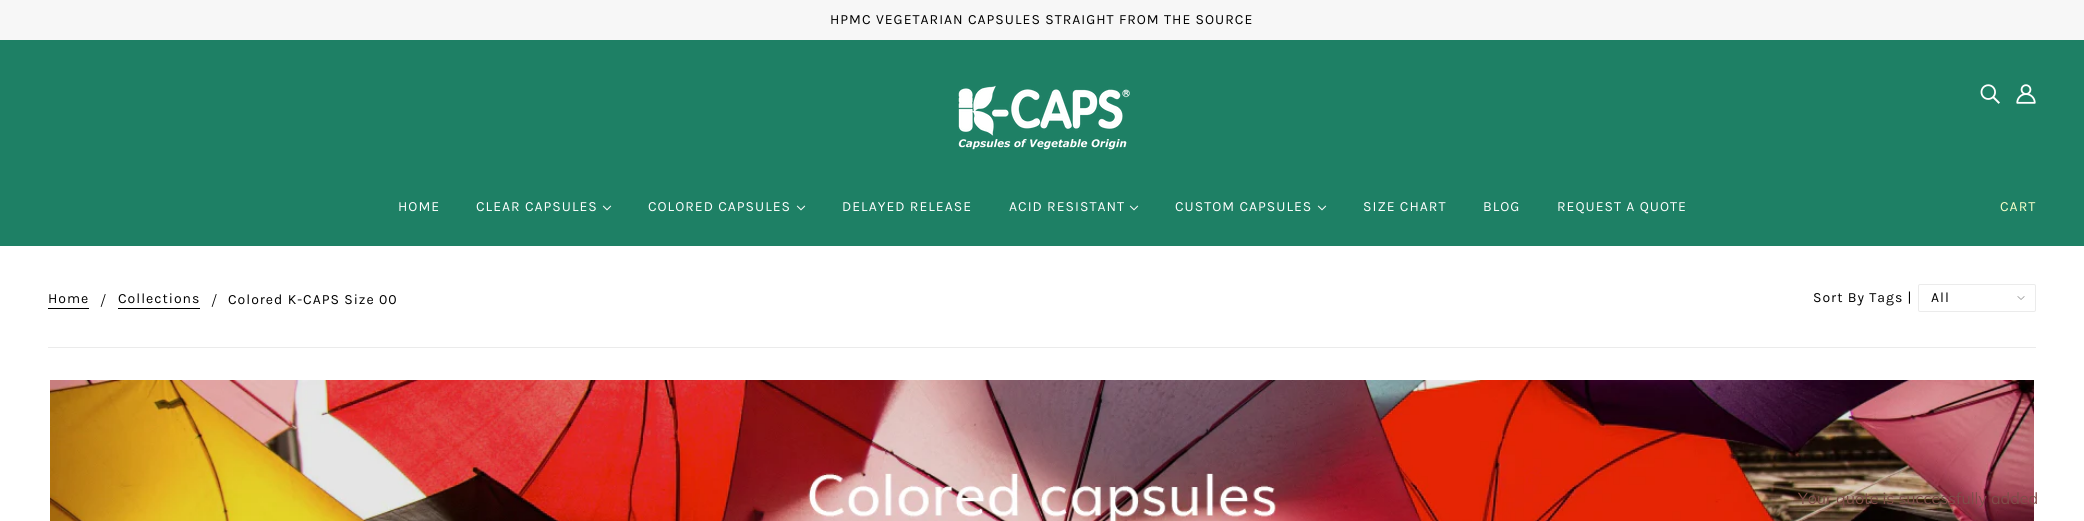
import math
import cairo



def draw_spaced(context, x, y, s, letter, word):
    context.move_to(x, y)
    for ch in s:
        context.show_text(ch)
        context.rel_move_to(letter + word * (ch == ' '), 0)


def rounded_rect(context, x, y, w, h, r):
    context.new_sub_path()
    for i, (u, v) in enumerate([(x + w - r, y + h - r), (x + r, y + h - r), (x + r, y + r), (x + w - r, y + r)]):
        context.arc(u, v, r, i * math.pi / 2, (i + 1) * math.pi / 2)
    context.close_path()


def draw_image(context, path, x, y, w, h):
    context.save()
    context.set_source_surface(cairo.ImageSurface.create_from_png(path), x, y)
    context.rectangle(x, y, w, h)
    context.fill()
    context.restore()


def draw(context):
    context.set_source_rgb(1, 1, 1)
    context.paint()
    context.set_source_rgb(247 / 255, 247 / 255, 247 / 255)
    context.rectangle(0, 0, 2084, 40)
    context.fill()
    context.set_source_rgb(30 / 255, 128 / 255, 101 / 255)
    context.rectangle(0, 40, 2084, 206)
    context.fill()
    draw_image(context, "images/1.png", 958, 85, 172, 65)
    draw_image(context, "images/2.png", 1980, 84, 20, 20)
    draw_image(context, "images/3.png", 2016, 84, 20, 20)
    draw_image(context, "images/4.png", 602, 205, 10, 6)
    draw_image(context, "images/4.png", 796, 205, 10, 6)
    draw_image(context, "images/4.png", 1129, 205, 10, 6)
    draw_image(context, "images/4.png", 1317, 205, 10, 6)
    context.set_source_rgb(0, 0, 0)
    context.rectangle(48, 308, 41, 1)
    context.fill()
    context.rectangle(118, 308, 82, 1)
    context.fill()
    draw_image(context, "images/5.png", 2017, 296, 8, 4)
    rounded_rect(context, 1918.5, 284.5, 117, 27, 1.5)
    context.set_source_rgb(235 / 255, 235 / 255, 235 / 255)
    context.set_line_width(1)
    context.stroke()
    context.rectangle(48, 347, 1988, 1)
    context.fill()
    draw_image(context, "images/6.png", 50, 380, 1984, 141)
    context.select_font_face("Karla")
    context.set_font_size(14)
    context.set_source_rgb(0, 0, 0)
    draw_spaced(context, 830, 24, "HPMC VEGETARIAN CAPSULES STRAIGHT FROM THE SOURCE", 1, 0)
    context.set_source_rgb(1, 1, 1)
    draw_spaced(context, 398, 211, "HOME", 1, 0)
    draw_spaced(context, 476, 211, "CLEAR CAPSULES", 1, 0)
    draw_spaced(context, 648, 211, "COLORED CAPSULES", 1, 0)
    draw_spaced(context, 842, 211, "DELAYED RELEASE", 1, 0)
    draw_spaced(context, 1009, 211, "ACID RESISTANT", 1, 0)
    draw_spaced(context, 1175, 211, "CUSTOM CAPSULES", 1, 0)
    draw_spaced(context, 1363, 211, "SIZE CHART", 1, 0)
    draw_spaced(context, 1483, 211, "BLOG", 1, 0)
    draw_spaced(context, 1557, 211, "REQUEST A QUOTE", 1, 0)
    context.set_source_rgb(246 / 255, 1, 201 / 255)
    draw_spaced(context, 2000, 211, "CART", 1, 0)
    context.set_source_rgb(0, 0, 0)
    draw_spaced(context, 48, 303, "Home", 1, 0)
    context.select_font_face("Muli Light")
    context.set_font_size(16)
    context.move_to(101, 306)
    context.show_text("/")
    context.select_font_face("Karla")
    context.set_font_size(14)
    draw_spaced(context, 118, 303, "Collections", 1, 0)
    context.select_font_face("Muli Light")
    context.set_font_size(16)
    context.move_to(212, 306)
    context.show_text("/")
    context.select_font_face("Karla")
    context.set_font_size(14)
    draw_spaced(context, 228, 304, "Colored K-CAPS Size 00", 1, 0)
    draw_spaced(context, 1813, 302, "Sort By Tags |", 1, 0)
    draw_spaced(context, 1931, 302, "All", 1, 0)
    context.select_font_face("Muli")
    context.set_font_size(16)
    context.set_source_rgb(126 / 255, 77 / 255, 72 / 255)
    context.move_to(1798, 504)
    context.show_text("Your quote is successfully added")


surface = cairo.ImageSurface(cairo.Format.RGB24, 2084, 521)
context = cairo.Context(surface)
options = cairo.FontOptions()
options.set_hint_metrics(cairo.HintMetrics.OFF)
options.set_hint_style(cairo.HintStyle.NONE)
context.set_font_options(options)
context.set_miter_limit(4)
draw(context)
surface.write_to_png("out.png")
